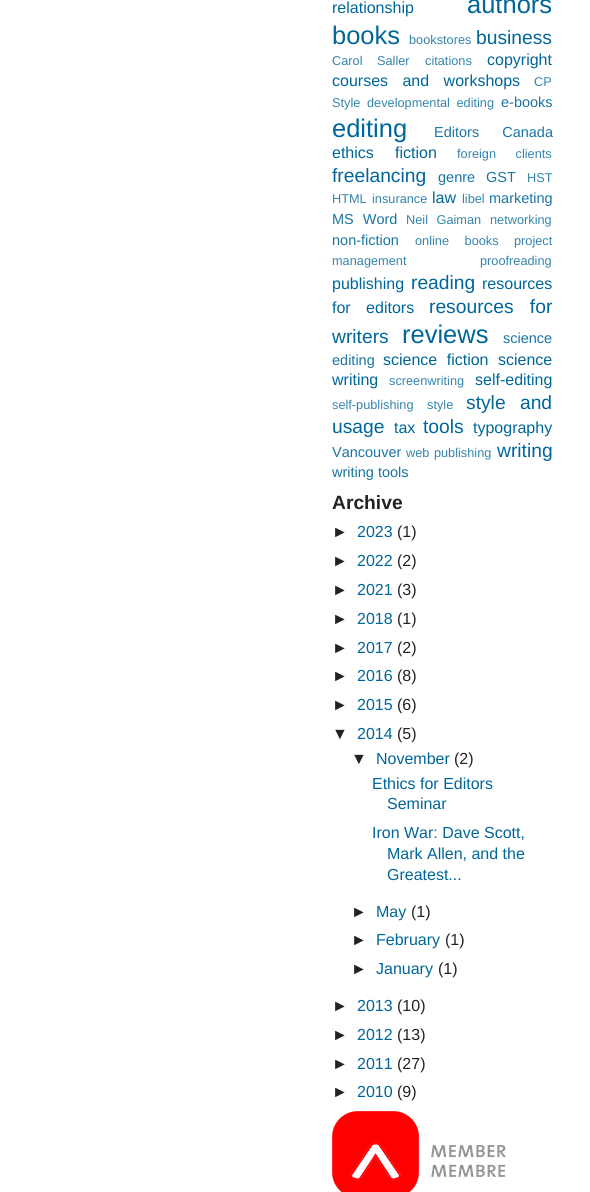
import math
import cairo



def draw_spaced(context, x, y, s, letter, word):
    context.move_to(x, y)
    for ch in s:
        context.show_text(ch)
        context.rel_move_to(letter + word * (ch == ' '), 0)


def draw_image(context, path, x, y, w, h):
    context.save()
    context.set_source_surface(cairo.ImageSurface.create_from_png(path), x, y)
    context.rectangle(x, y, w, h)
    context.fill()
    context.restore()


def draw(context):
    context.set_source_rgb(1, 1, 1)
    context.paint()
    draw_image(context, "images/1.png", 332, 1111, 174, 81)
    context.select_font_face("Liberation Sans")
    context.set_font_size(16)
    context.set_source_rgb(0, 102 / 255, 153 / 255)
    context.move_to(332, 13)
    context.show_text("relationship")
    context.set_font_size(25.5)
    context.move_to(467, 13)
    context.show_text("authors")
    context.move_to(332, 44)
    context.show_text("books")
    context.set_font_size(12.75)
    context.set_source_rgb(51 / 255, 133 / 255, 173 / 255)
    context.move_to(409, 44)
    context.show_text("bookstores")
    context.set_font_size(19.25)
    context.set_source_rgb(0, 102 / 255, 153 / 255)
    context.move_to(476, 44)
    context.show_text("business")
    context.set_font_size(12.75)
    context.set_source_rgb(51 / 255, 133 / 255, 173 / 255)
    draw_spaced(context, 332, 65, "Carol Saller", 0, 11)
    context.move_to(425, 65)
    context.show_text("citations")
    context.set_font_size(16)
    context.set_source_rgb(0, 102 / 255, 153 / 255)
    context.move_to(487, 65)
    context.show_text("copyright")
    draw_spaced(context, 332, 86, "courses and workshops", 0, 10)
    context.set_font_size(12.75)
    context.set_source_rgb(51 / 255, 133 / 255, 173 / 255)
    context.move_to(534, 86)
    context.show_text("CP")
    context.move_to(332, 107)
    context.show_text("Style")
    draw_spaced(context, 367, 107, "developmental editing", 0, 3)
    context.set_font_size(14.5)
    context.set_source_rgb(26 / 255, 117 / 255, 163 / 255)
    context.move_to(501, 107)
    context.show_text("e-books")
    context.set_font_size(25.5)
    context.set_source_rgb(0, 102 / 255, 153 / 255)
    context.move_to(332, 137)
    context.show_text("editing")
    context.set_font_size(14.5)
    context.set_source_rgb(26 / 255, 117 / 255, 163 / 255)
    draw_spaced(context, 434, 137, "Editors Canada", 0, 19)
    context.set_font_size(16)
    context.set_source_rgb(0, 102 / 255, 153 / 255)
    context.move_to(332, 158)
    context.show_text("ethics")
    context.move_to(395, 158)
    context.show_text("fiction")
    context.set_font_size(12.75)
    context.set_source_rgb(51 / 255, 133 / 255, 173 / 255)
    draw_spaced(context, 457, 158, "foreign clients", 0, 16)
    context.set_font_size(19.25)
    context.set_source_rgb(0, 102 / 255, 153 / 255)
    context.move_to(332, 182)
    context.show_text("freelancing")
    context.set_font_size(14.5)
    context.set_source_rgb(26 / 255, 117 / 255, 163 / 255)
    context.move_to(438, 182)
    context.show_text("genre")
    context.move_to(486, 182)
    context.show_text("GST")
    context.set_font_size(12.75)
    context.set_source_rgb(51 / 255, 133 / 255, 173 / 255)
    context.move_to(527, 182)
    context.show_text("HST")
    context.move_to(332, 203)
    context.show_text("HTML")
    context.move_to(372, 203)
    context.show_text("insurance")
    context.set_font_size(16)
    context.set_source_rgb(0, 102 / 255, 153 / 255)
    context.move_to(432, 203)
    context.show_text("law")
    context.set_font_size(12.75)
    context.set_source_rgb(51 / 255, 133 / 255, 173 / 255)
    context.move_to(462, 203)
    context.show_text("libel")
    context.set_font_size(14.5)
    context.set_source_rgb(26 / 255, 117 / 255, 163 / 255)
    context.move_to(489, 203)
    context.show_text("marketing")
    draw_spaced(context, 332, 224, "MS Word", 0, 5)
    context.set_font_size(12.75)
    context.set_source_rgb(51 / 255, 133 / 255, 173 / 255)
    draw_spaced(context, 406, 224, "Neil Gaiman", 0, 5)
    context.move_to(490, 224)
    context.show_text("networking")
    context.set_font_size(14.5)
    context.set_source_rgb(26 / 255, 117 / 255, 163 / 255)
    context.move_to(332, 245)
    context.show_text("non-fiction")
    context.set_font_size(12.75)
    context.set_source_rgb(51 / 255, 133 / 255, 173 / 255)
    draw_spaced(context, 415, 245, "online books", 0, 12)
    context.move_to(514, 245)
    context.show_text("project")
    context.move_to(332, 265)
    context.show_text("management")
    context.move_to(480, 265)
    context.show_text("proofreading")
    context.set_font_size(16)
    context.set_source_rgb(0, 102 / 255, 153 / 255)
    context.move_to(332, 289)
    context.show_text("publishing")
    context.set_font_size(19.25)
    context.move_to(411, 289)
    context.show_text("reading")
    context.set_font_size(16)
    context.move_to(482, 289)
    context.show_text("resources")
    draw_spaced(context, 332, 313, "for editors", 0, 11)
    context.set_font_size(19.25)
    draw_spaced(context, 429, 313, "resources for", 0, 11)
    context.move_to(332, 343)
    context.show_text("writers")
    context.set_font_size(25.5)
    context.move_to(402, 343)
    context.show_text("reviews")
    context.set_font_size(14.5)
    context.set_source_rgb(26 / 255, 117 / 255, 163 / 255)
    context.move_to(503, 343)
    context.show_text("science")
    context.move_to(332, 365)
    context.show_text("editing")
    context.set_font_size(16)
    context.set_source_rgb(0, 102 / 255, 153 / 255)
    draw_spaced(context, 383, 365, "science fiction", 0, 5)
    context.move_to(498, 365)
    context.show_text("science")
    context.move_to(332, 385)
    context.show_text("writing")
    context.set_font_size(12.75)
    context.set_source_rgb(51 / 255, 133 / 255, 173 / 255)
    context.move_to(389, 385)
    context.show_text("screenwriting")
    context.set_font_size(16)
    context.set_source_rgb(0, 102 / 255, 153 / 255)
    context.move_to(475, 385)
    context.show_text("self-editing")
    context.set_font_size(12.75)
    context.set_source_rgb(51 / 255, 133 / 255, 173 / 255)
    context.move_to(332, 409)
    context.show_text("self-publishing")
    context.move_to(427, 409)
    context.show_text("style")
    context.set_font_size(19.25)
    context.set_source_rgb(0, 102 / 255, 153 / 255)
    draw_spaced(context, 466, 409, "style and", 0, 9)
    context.move_to(332, 433)
    context.show_text("usage")
    context.set_font_size(16)
    context.move_to(394, 433)
    context.show_text("tax")
    context.set_font_size(19.25)
    context.move_to(423, 433)
    context.show_text("tools")
    context.set_font_size(16)
    context.move_to(473, 433)
    context.show_text("typography")
    context.set_font_size(14.5)
    context.set_source_rgb(26 / 255, 117 / 255, 163 / 255)
    context.move_to(332, 457)
    context.show_text("Vancouver")
    context.set_font_size(12.75)
    context.set_source_rgb(51 / 255, 133 / 255, 173 / 255)
    draw_spaced(context, 406, 457, "web publishing", 0, 1)
    context.set_font_size(19.25)
    context.set_source_rgb(0, 102 / 255, 153 / 255)
    context.move_to(497, 457)
    context.show_text("writing")
    context.set_font_size(14.5)
    context.set_source_rgb(26 / 255, 117 / 255, 163 / 255)
    context.move_to(332, 477)
    context.show_text("writing tools")
    context.select_font_face("Liberation Sans", cairo.FontSlant.NORMAL, cairo.FontWeight.BOLD)
    context.set_font_size(19.25)
    context.set_source_rgb(34 / 255, 34 / 255, 34 / 255)
    context.move_to(332, 509)
    context.show_text("Archive")
    context.select_font_face("Liberation Sans")
    context.set_font_size(16)
    context.move_to(332, 537)
    context.show_text("►")
    context.set_source_rgb(0, 102 / 255, 153 / 255)
    context.move_to(357, 537)
    context.show_text("2023")
    context.set_source_rgb(34 / 255, 34 / 255, 34 / 255)
    context.move_to(397, 537)
    context.show_text("(1)")
    context.move_to(332, 566)
    context.show_text("►")
    context.set_source_rgb(0, 102 / 255, 153 / 255)
    context.move_to(357, 566)
    context.show_text("2022")
    context.set_source_rgb(34 / 255, 34 / 255, 34 / 255)
    context.move_to(397, 566)
    context.show_text("(2)")
    context.move_to(332, 595)
    context.show_text("►")
    context.set_source_rgb(0, 102 / 255, 153 / 255)
    context.move_to(357, 595)
    context.show_text("2021")
    context.set_source_rgb(34 / 255, 34 / 255, 34 / 255)
    context.move_to(397, 595)
    context.show_text("(3)")
    context.move_to(332, 624)
    context.show_text("►")
    context.set_source_rgb(0, 102 / 255, 153 / 255)
    context.move_to(357, 624)
    context.show_text("2018")
    context.set_source_rgb(34 / 255, 34 / 255, 34 / 255)
    context.move_to(397, 624)
    context.show_text("(1)")
    context.move_to(332, 653)
    context.show_text("►")
    context.set_source_rgb(0, 102 / 255, 153 / 255)
    context.move_to(357, 653)
    context.show_text("2017")
    context.set_source_rgb(34 / 255, 34 / 255, 34 / 255)
    context.move_to(397, 653)
    context.show_text("(2)")
    context.move_to(332, 681)
    context.show_text("►")
    context.set_source_rgb(0, 102 / 255, 153 / 255)
    context.move_to(357, 681)
    context.show_text("2016")
    context.set_source_rgb(34 / 255, 34 / 255, 34 / 255)
    context.move_to(397, 681)
    context.show_text("(8)")
    context.move_to(332, 710)
    context.show_text("►")
    context.set_source_rgb(0, 102 / 255, 153 / 255)
    context.move_to(357, 710)
    context.show_text("2015")
    context.set_source_rgb(34 / 255, 34 / 255, 34 / 255)
    context.move_to(397, 710)
    context.show_text("(6)")
    context.move_to(332, 739)
    context.show_text("▼")
    context.set_source_rgb(0, 102 / 255, 153 / 255)
    context.move_to(357, 739)
    context.show_text("2014")
    context.set_source_rgb(34 / 255, 34 / 255, 34 / 255)
    context.move_to(397, 739)
    context.show_text("(5)")
    context.move_to(351, 764)
    context.show_text("▼")
    context.set_source_rgb(0, 102 / 255, 153 / 255)
    context.move_to(376, 764)
    context.show_text("November")
    context.set_source_rgb(34 / 255, 34 / 255, 34 / 255)
    context.move_to(454, 764)
    context.show_text("(2)")
    context.set_source_rgb(0, 102 / 255, 153 / 255)
    context.move_to(372, 789)
    context.show_text("Ethics for Editors")
    context.move_to(387, 809)
    context.show_text("Seminar")
    context.move_to(372, 838)
    context.show_text("Iron War: Dave Scott,")
    context.move_to(387, 859)
    context.show_text("Mark Allen, and the")
    context.move_to(387, 880)
    context.show_text("Greatest...")
    context.set_source_rgb(34 / 255, 34 / 255, 34 / 255)
    context.move_to(351, 917)
    context.show_text("►")
    context.set_source_rgb(0, 102 / 255, 153 / 255)
    context.move_to(376, 917)
    context.show_text("May")
    context.set_source_rgb(34 / 255, 34 / 255, 34 / 255)
    context.move_to(411, 917)
    context.show_text("(1)")
    context.move_to(351, 945)
    context.show_text("►")
    context.set_source_rgb(0, 102 / 255, 153 / 255)
    context.move_to(376, 945)
    context.show_text("February")
    context.set_source_rgb(34 / 255, 34 / 255, 34 / 255)
    context.move_to(445, 945)
    context.show_text("(1)")
    context.move_to(351, 974)
    context.show_text("►")
    context.set_source_rgb(0, 102 / 255, 153 / 255)
    context.move_to(376, 974)
    context.show_text("January")
    context.set_source_rgb(34 / 255, 34 / 255, 34 / 255)
    context.move_to(438, 974)
    context.show_text("(1)")
    context.move_to(332, 1011)
    context.show_text("►")
    context.set_source_rgb(0, 102 / 255, 153 / 255)
    context.move_to(357, 1011)
    context.show_text("2013")
    context.set_source_rgb(34 / 255, 34 / 255, 34 / 255)
    context.move_to(397, 1011)
    context.show_text("(10)")
    context.move_to(332, 1040)
    context.show_text("►")
    context.set_source_rgb(0, 102 / 255, 153 / 255)
    context.move_to(357, 1040)
    context.show_text("2012")
    context.set_source_rgb(34 / 255, 34 / 255, 34 / 255)
    context.move_to(397, 1040)
    context.show_text("(13)")
    context.move_to(332, 1069)
    context.show_text("►")
    context.set_source_rgb(0, 102 / 255, 153 / 255)
    context.move_to(357, 1069)
    context.show_text("2011")
    context.set_source_rgb(34 / 255, 34 / 255, 34 / 255)
    context.move_to(397, 1069)
    context.show_text("(27)")
    context.move_to(332, 1097)
    context.show_text("►")
    context.set_source_rgb(0, 102 / 255, 153 / 255)
    context.move_to(357, 1097)
    context.show_text("2010")
    context.set_source_rgb(34 / 255, 34 / 255, 34 / 255)
    context.move_to(397, 1097)
    context.show_text("(9)")


surface = cairo.ImageSurface(cairo.Format.RGB24, 590, 1192)
context = cairo.Context(surface)
options = cairo.FontOptions()
options.set_hint_metrics(cairo.HintMetrics.OFF)
options.set_hint_style(cairo.HintStyle.NONE)
context.set_font_options(options)
context.set_miter_limit(4)
draw(context)
surface.write_to_png("out.png")
